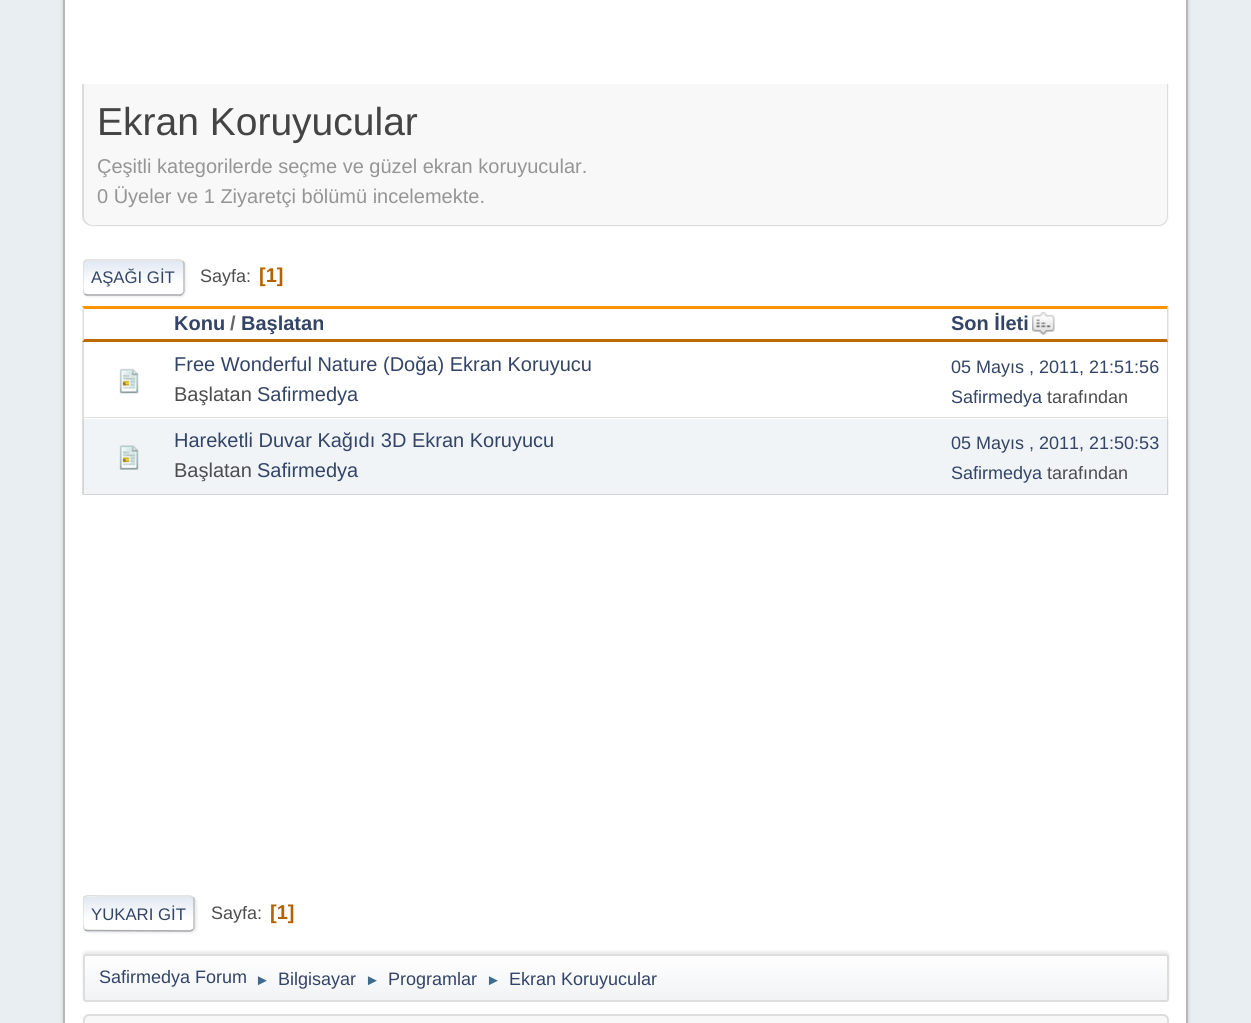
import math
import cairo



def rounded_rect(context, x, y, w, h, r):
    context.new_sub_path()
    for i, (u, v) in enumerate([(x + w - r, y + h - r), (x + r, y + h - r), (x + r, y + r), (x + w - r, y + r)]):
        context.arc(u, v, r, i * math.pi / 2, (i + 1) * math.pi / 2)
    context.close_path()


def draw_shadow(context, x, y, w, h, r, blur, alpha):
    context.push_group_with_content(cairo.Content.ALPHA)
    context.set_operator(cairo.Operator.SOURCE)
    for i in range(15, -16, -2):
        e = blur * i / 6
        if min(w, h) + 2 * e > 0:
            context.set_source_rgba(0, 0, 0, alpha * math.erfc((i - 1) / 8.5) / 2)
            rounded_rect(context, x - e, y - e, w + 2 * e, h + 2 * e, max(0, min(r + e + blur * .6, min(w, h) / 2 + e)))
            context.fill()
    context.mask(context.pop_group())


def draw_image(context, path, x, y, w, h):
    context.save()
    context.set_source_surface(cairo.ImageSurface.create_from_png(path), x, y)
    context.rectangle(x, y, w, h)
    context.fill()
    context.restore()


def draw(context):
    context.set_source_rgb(233 / 255, 238 / 255, 242 / 255)
    context.paint()
    context.set_source_rgb(0, 0, 0)
    draw_shadow(context, 63, -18, 1125, 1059, 12, 2, 0.14)
    context.set_source_rgb(1, 1, 1)
    context.rectangle(64, -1, 1123, 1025)
    context.fill_preserve()
    context.set_source_rgb(184 / 255, 184 / 255, 184 / 255)
    context.stroke()
    context.set_source_rgb(248 / 255, 248 / 255, 248 / 255)
    context.new_path()
    context.move_to(83, 84)
    context.line_to(1169, 84)
    context.line_to(1169, 216)
    context.curve_to(1169, 222, 1164, 227, 1158, 227)
    context.line_to(94, 227)
    context.curve_to(88, 227, 83, 222, 83, 216)
    context.close_path()
    context.fill()
    context.set_source_rgb(221 / 255, 221 / 255, 221 / 255)
    context.set_fill_rule(cairo.FillRule.EVEN_ODD)
    context.new_path()
    context.move_to(82, 84)
    context.line_to(1168, 84)
    context.line_to(1168, 216)
    context.curve_to(1168, 222, 1164, 226, 1158, 226)
    context.line_to(93, 226)
    context.curve_to(87, 226, 82, 222, 82, 216)
    context.close_path()
    context.move_to(84, 84)
    context.line_to(1167, 84)
    context.line_to(1167, 216)
    context.curve_to(1167, 221, 1163, 225, 1158, 225)
    context.line_to(93, 225)
    context.curve_to(88, 225, 84, 221, 84, 216)
    context.close_path()
    context.fill()
    context.set_source_rgb(221 / 255, 221 / 255, 221 / 255)
    draw_shadow(context, 84, 261, 102, 36, 5, 1, 0.57)
    context.save()
    context.set_fill_rule(cairo.FillRule.WINDING)
    rounded_rect(context, 83, 260, 102, 36, 5)
    context.clip()
    gradient = cairo.LinearGradient(134, 261, 134, 294)
    gradient.add_color_stop_rgba(0, 226 / 255, 233 / 255, 243 / 255, 1)
    gradient.add_color_stop_rgba(0.7, 1, 1, 1, 1)
    context.set_source(gradient)
    context.rectangle(83, 261, 102, 33)
    context.fill()
    gradient = cairo.LinearGradient(134, 294, 134, 327)
    gradient.add_color_stop_rgba(0, 226 / 255, 233 / 255, 243 / 255, 1)
    gradient.add_color_stop_rgba(0.7, 1, 1, 1, 1)
    context.set_source(gradient)
    context.rectangle(83, 294, 102, 2)
    context.fill()
    context.restore()
    context.new_path()
    context.move_to(182.5, 261.5)
    context.curve_to(183.5, 262, 184, 263, 184, 264)
    context.line_to(184, 291)
    context.curve_to(184, 292, 183.5, 293, 182.5, 293.5)
    context.set_source_rgb(187 / 255, 187 / 255, 187 / 255)
    context.set_line_width(1.5)
    context.stroke()
    context.new_path()
    context.move_to(182.5, 293.5)
    context.curve_to(182, 294.5, 181, 295, 180, 295)
    context.line_to(87, 295)
    context.curve_to(86, 295, 85, 294.5, 84.5, 293.5)
    context.set_source_rgb(170 / 255, 170 / 255, 170 / 255)
    context.stroke()
    context.save()
    context.set_fill_rule(cairo.FillRule.WINDING)
    context.rectangle(83, 249, 1086, 57)
    context.clip()
    context.new_path()
    context.move_to(84.5, 293.5)
    context.curve_to(82, 291, 83, 285, 83, 282)
    context.line_to(83, 268.5)
    context.curve_to(83, 265.5, 82.5, 260.5, 87, 260)
    context.line_to(180, 260)
    context.line_to(182.5, 261.5)
    context.set_source_rgb(221 / 255, 221 / 255, 221 / 255)
    context.stroke()
    context.restore()
    context.set_source_rgb(1, 148 / 255, 0)
    context.set_fill_rule(cairo.FillRule.WINDING)
    context.new_path()
    context.move_to(82, 306)
    context.line_to(1168, 306)
    context.line_to(1167, 309)
    context.line_to(84, 309)
    context.close_path()
    context.fill()
    context.set_source_rgb(221 / 255, 221 / 255, 221 / 255)
    context.new_path()
    context.move_to(1168.5, 306)
    context.line_to(1168.5, 342)
    context.line_to(1167, 339)
    context.line_to(1167, 309)
    context.close_path()
    context.fill()
    context.set_source_rgb(191 / 255, 105 / 255, 0)
    context.new_path()
    context.move_to(1168, 342)
    context.line_to(82, 342)
    context.line_to(84, 339)
    context.line_to(1167, 339)
    context.close_path()
    context.fill()
    context.set_source_rgb(221 / 255, 221 / 255, 221 / 255)
    context.new_path()
    context.move_to(82.5, 342)
    context.line_to(82.5, 306)
    context.line_to(84, 309)
    context.line_to(84, 339)
    context.close_path()
    context.fill()
    draw_image(context, "images/1.png", 1032, 312, 23, 23)
    context.set_source_rgb(220 / 255, 220 / 255, 220 / 255)
    context.new_path()
    context.move_to(1168, 342)
    context.line_to(1168, 418)
    context.line_to(1167, 417)
    context.line_to(1167, 342)
    context.close_path()
    context.fill()
    context.set_source_rgba(0, 0, 0, 0.13)
    context.new_path()
    context.move_to(1168, 418)
    context.line_to(82, 418)
    context.line_to(84, 417)
    context.line_to(1167, 417)
    context.close_path()
    context.fill()
    context.new_path()
    context.move_to(82, 418)
    context.line_to(82, 342)
    context.line_to(84, 342)
    context.line_to(84, 417)
    context.close_path()
    context.fill()
    draw_image(context, "images/2.png", 119, 368, 20, 26)
    context.set_source_rgb(240 / 255, 244 / 255, 247 / 255)
    context.rectangle(83, 419, 1086, 76)
    context.fill()
    context.set_source_rgba(0, 0, 0, 0.13)
    context.new_path()
    context.move_to(1168, 418)
    context.line_to(1168, 495)
    context.line_to(1167, 494)
    context.line_to(1167, 418)
    context.close_path()
    context.fill()
    context.new_path()
    context.move_to(1168, 495)
    context.line_to(82, 495)
    context.line_to(84, 494)
    context.line_to(1167, 494)
    context.close_path()
    context.fill()
    context.new_path()
    context.move_to(82, 495)
    context.line_to(82, 418)
    context.line_to(84, 418)
    context.line_to(84, 494)
    context.close_path()
    context.fill()
    draw_image(context, "images/3.png", 119, 445, 20, 25)
    context.set_source_rgb(221 / 255, 221 / 255, 221 / 255)
    draw_shadow(context, 84, 897, 113, 36, 5, 1, 0.57)
    context.set_source_rgb(1, 1, 1)
    rounded_rect(context, 83, 896, 112, 36, 5)
    context.fill()
    context.save()
    rounded_rect(context, 83, 896, 112, 36, 5)
    context.clip()
    gradient = cairo.LinearGradient(139, 897, 139, 930)
    gradient.add_color_stop_rgba(0, 226 / 255, 233 / 255, 243 / 255, 1)
    gradient.add_color_stop_rgba(0.7, 1, 1, 1, 1)
    context.set_source(gradient)
    context.rectangle(83, 897, 112, 33)
    context.fill()
    gradient = cairo.LinearGradient(139, 930, 139, 963)
    gradient.add_color_stop_rgba(0, 226 / 255, 233 / 255, 243 / 255, 1)
    gradient.add_color_stop_rgba(0.7, 1, 1, 1, 1)
    context.set_source(gradient)
    context.rectangle(83, 930, 112, 2)
    context.fill()
    context.restore()
    context.new_path()
    context.move_to(193, 897.5)
    context.curve_to(194, 898, 194, 899, 194, 900)
    context.line_to(194, 927)
    context.curve_to(194, 928, 194, 929, 193, 929.5)
    context.set_source_rgb(187 / 255, 187 / 255, 187 / 255)
    context.stroke()
    context.new_path()
    context.move_to(193, 929.5)
    context.line_to(190.5, 931)
    context.line_to(86.5, 930.5)
    context.line_to(84.5, 929.5)
    context.set_source_rgb(170 / 255, 170 / 255, 170 / 255)
    context.stroke()
    context.save()
    context.rectangle(83, 885, 1086, 57)
    context.clip()
    context.new_path()
    context.move_to(84.5, 929.5)
    context.curve_to(82, 927.5, 83, 916.5, 83, 913.5)
    context.curve_to(83, 892, 80.5, 896, 104, 896)
    context.line_to(190.5, 896)
    context.line_to(193, 897.5)
    context.set_source_rgb(221 / 255, 221 / 255, 221 / 255)
    context.stroke()
    context.restore()
    context.set_source_rgb(0, 0, 0)
    draw_shadow(context, 83, 951, 1086, 48, 3, 1.5, 0.08)
    context.save()
    rounded_rect(context, 83, 954, 1086, 48, 3)
    context.clip()
    gradient = cairo.LinearGradient(626, 956, 626, 1001)
    gradient.add_color_stop_rgba(0, 1, 1, 1, 1)
    gradient.add_color_stop_rgba(0.95, 241 / 255, 243 / 255, 245 / 255, 1)
    context.set_source(gradient)
    context.rectangle(83, 956, 1086, 45)
    context.fill()
    context.restore()
    rounded_rect(context, 84, 955, 1084, 46, 2)
    context.set_source_rgb(221 / 255, 221 / 255, 221 / 255)
    context.set_line_width(2)
    context.stroke()
    context.set_source_rgb(248 / 255, 248 / 255, 248 / 255)
    rounded_rect(context, 84, 1015, 1084, 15, 5)
    context.fill_preserve()
    context.set_source_rgb(221 / 255, 221 / 255, 221 / 255)
    context.stroke()
    context.select_font_face("Liberation Sans")
    context.set_font_size(39)
    context.set_source_rgb(68 / 255, 68 / 255, 68 / 255)
    context.move_to(97, 135)
    context.show_text("Ekran Koruyucular")
    context.set_font_size(20)
    context.set_source_rgb(149 / 255, 149 / 255, 149 / 255)
    context.move_to(97, 173)
    context.show_text("Çeşitli kategorilerde seçme ve güzel ekran koruyucular.")
    context.move_to(97, 203)
    context.show_text("0 Üyeler ve 1 Ziyaretçi bölümü incelemekte.")
    context.set_font_size(16.75)
    context.set_source_rgb(51 / 255, 68 / 255, 102 / 255)
    context.move_to(91, 283)
    context.show_text("AŞAĞI GİT")
    context.set_font_size(18)
    context.set_source_rgb(77 / 255, 77 / 255, 77 / 255)
    context.move_to(200, 282)
    context.show_text("Sayfa:")
    context.select_font_face("Liberation Sans", cairo.FontSlant.NORMAL, cairo.FontWeight.BOLD)
    context.set_font_size(20)
    context.set_source_rgb(180 / 255, 97 / 255, 0)
    context.move_to(259, 282)
    context.show_text("[1]")
    context.set_source_rgb(51 / 255, 68 / 255, 102 / 255)
    context.move_to(174, 330)
    context.show_text("Konu")
    context.set_source_rgb(102 / 255, 102 / 255, 102 / 255)
    context.move_to(230, 330)
    context.show_text("/")
    context.set_source_rgb(51 / 255, 68 / 255, 102 / 255)
    context.move_to(241, 330)
    context.show_text("Başlatan")
    context.move_to(951, 330)
    context.show_text("Son İleti")
    context.select_font_face("Liberation Sans")
    context.move_to(174, 371)
    context.show_text("Free Wonderful Nature (Doğa) Ekran Koruyucu")
    context.set_source_rgb(77 / 255, 77 / 255, 77 / 255)
    context.move_to(174, 401)
    context.show_text("Başlatan")
    context.set_source_rgb(51 / 255, 68 / 255, 102 / 255)
    context.move_to(257, 401)
    context.show_text("Safirmedya")
    context.set_font_size(18)
    context.move_to(951, 373)
    context.show_text("05 Mayıs , 2011, 21:51:56")
    context.move_to(951, 403)
    context.show_text("Safirmedya")
    context.set_source_rgb(77 / 255, 77 / 255, 77 / 255)
    context.move_to(1047, 403)
    context.show_text("tarafından")
    context.set_font_size(20)
    context.set_source_rgb(51 / 255, 68 / 255, 102 / 255)
    context.move_to(174, 447)
    context.show_text("Hareketli Duvar Kağıdı 3D Ekran Koruyucu")
    context.set_source_rgb(77 / 255, 77 / 255, 77 / 255)
    context.move_to(174, 477)
    context.show_text("Başlatan")
    context.set_source_rgb(51 / 255, 68 / 255, 102 / 255)
    context.move_to(257, 477)
    context.show_text("Safirmedya")
    context.set_font_size(18)
    context.move_to(951, 449)
    context.show_text("05 Mayıs , 2011, 21:50:53")
    context.move_to(951, 479)
    context.show_text("Safirmedya")
    context.set_source_rgb(77 / 255, 77 / 255, 77 / 255)
    context.move_to(1047, 479)
    context.show_text("tarafından")
    context.set_font_size(16.75)
    context.set_source_rgb(51 / 255, 68 / 255, 102 / 255)
    context.move_to(91, 920)
    context.show_text("YUKARI GİT")
    context.set_font_size(18)
    context.set_source_rgb(77 / 255, 77 / 255, 77 / 255)
    context.move_to(211, 919)
    context.show_text("Sayfa:")
    context.select_font_face("Liberation Sans", cairo.FontSlant.NORMAL, cairo.FontWeight.BOLD)
    context.set_font_size(20)
    context.set_source_rgb(180 / 255, 97 / 255, 0)
    context.move_to(270, 919)
    context.show_text("[1]")
    context.select_font_face("Liberation Sans")
    context.set_font_size(18)
    context.set_source_rgb(51 / 255, 68 / 255, 102 / 255)
    context.move_to(99, 983)
    context.show_text("Safirmedya Forum")
    context.set_font_size(15)
    context.set_source_rgb(63 / 255, 107 / 255, 140 / 255)
    context.move_to(255, 985)
    context.show_text("►")
    context.set_font_size(18)
    context.set_source_rgb(51 / 255, 68 / 255, 102 / 255)
    context.move_to(278, 985)
    context.show_text("Bilgisayar")
    context.set_font_size(15)
    context.set_source_rgb(63 / 255, 107 / 255, 140 / 255)
    context.move_to(365, 985)
    context.show_text("►")
    context.set_font_size(18)
    context.set_source_rgb(51 / 255, 68 / 255, 102 / 255)
    context.move_to(388, 985)
    context.show_text("Programlar")
    context.set_font_size(15)
    context.set_source_rgb(63 / 255, 107 / 255, 140 / 255)
    context.move_to(486, 985)
    context.show_text("►")
    context.set_font_size(18)
    context.set_source_rgb(51 / 255, 68 / 255, 102 / 255)
    context.move_to(509, 985)
    context.show_text("Ekran Koruyucular")


surface = cairo.ImageSurface(cairo.Format.RGB24, 1251, 1023)
context = cairo.Context(surface)
options = cairo.FontOptions()
options.set_hint_metrics(cairo.HintMetrics.OFF)
options.set_hint_style(cairo.HintStyle.NONE)
context.set_font_options(options)
context.set_miter_limit(4)
draw(context)
surface.write_to_png("out.png")
